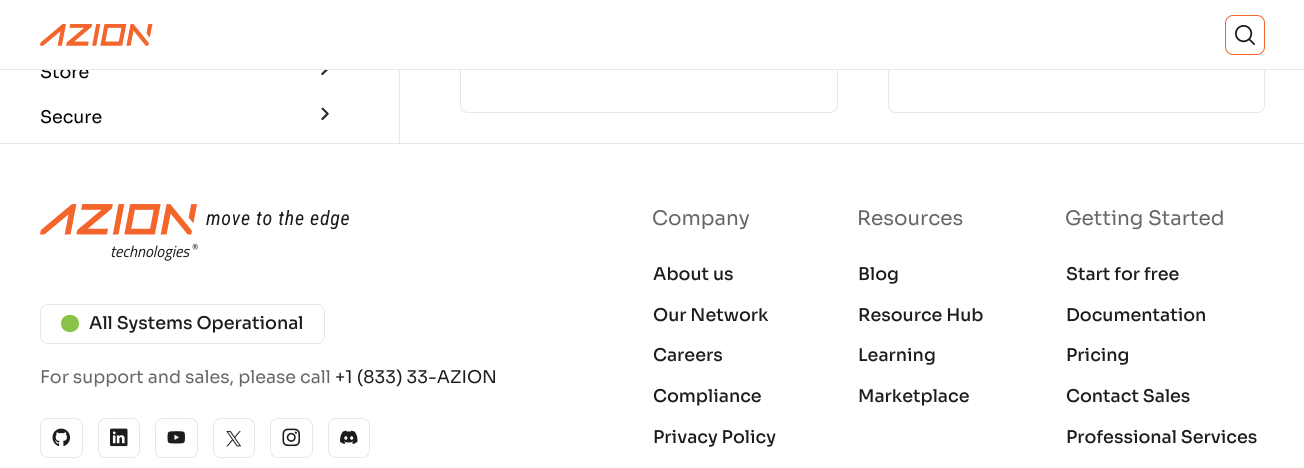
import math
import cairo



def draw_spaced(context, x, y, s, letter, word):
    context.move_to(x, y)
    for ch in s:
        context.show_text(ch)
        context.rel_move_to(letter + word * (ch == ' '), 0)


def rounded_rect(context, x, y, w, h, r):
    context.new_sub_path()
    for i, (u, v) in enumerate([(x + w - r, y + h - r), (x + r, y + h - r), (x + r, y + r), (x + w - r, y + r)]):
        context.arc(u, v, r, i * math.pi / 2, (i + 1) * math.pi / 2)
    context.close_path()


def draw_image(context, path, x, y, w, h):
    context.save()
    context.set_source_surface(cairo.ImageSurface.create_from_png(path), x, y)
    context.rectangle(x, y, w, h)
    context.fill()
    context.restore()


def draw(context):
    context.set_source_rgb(1, 1, 1)
    context.paint()
    context.set_source_rgb(232 / 255, 232 / 255, 232 / 255)
    context.rectangle(399, 70, 1, 73)
    context.fill()
    draw_image(context, "images/3.png", 321, 70, 7, 6)
    draw_image(context, "images/4.png", 321, 107, 8, 14)
    rounded_rect(context, 460.5, -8.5, 377, 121, 7.5)
    context.set_line_width(1)
    context.stroke()
    rounded_rect(context, 888.5, -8.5, 376, 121, 7.5)
    context.stroke()
    context.rectangle(0, 143, 1304, 1)
    context.fill()
    draw_image(context, "images/5.png", 40, 204, 158, 31)
    rounded_rect(context, 40.5, 304.5, 284, 39, 7.5)
    context.stroke()
    context.set_source_rgb(139 / 255, 194 / 255, 73 / 255)
    context.new_path()
    context.move_to(79, 323.5)
    context.curve_to(79, 335, 61, 335, 61, 323.5)
    context.curve_to(61, 312, 79, 312, 79, 323.5)
    context.close_path()
    context.fill()
    rounded_rect(context, 40.5, 418.5, 42, 39, 7.5)
    context.set_source_rgb(232 / 255, 232 / 255, 232 / 255)
    context.stroke()
    draw_image(context, "images/6.png", 52, 428, 18, 19)
    rounded_rect(context, 98.5, 418.5, 41, 39, 7.5)
    context.stroke()
    draw_image(context, "images/7.png", 110, 428, 18, 19)
    rounded_rect(context, 155.5, 418.5, 42, 39, 7.5)
    context.stroke()
    draw_image(context, "images/8.png", 167, 431, 18, 13)
    rounded_rect(context, 213.5, 418.5, 41, 39, 7.5)
    context.stroke()
    draw_image(context, "images/9.png", 226, 431, 16, 16)
    rounded_rect(context, 270.5, 418.5, 42, 39, 7.5)
    context.stroke()
    draw_image(context, "images/10.png", 282, 428, 18, 19)
    rounded_rect(context, 328.5, 418.5, 41, 39, 7.5)
    context.stroke()
    draw_image(context, "images/11.png", 340, 430, 18, 14)
    context.select_font_face("Sora")
    context.set_font_size(17.5)
    context.set_source_rgb(0, 0, 0)
    context.move_to(40, 78)
    context.show_text("Store")
    context.set_source_rgb(1, 1, 1)
    context.rectangle(41, 0, 1224, 69)
    context.fill()
    rounded_rect(context, 1225.5, 15.5, 39, 39, 7.5)
    context.set_source_rgb(243 / 255, 101 / 255, 43 / 255)
    context.stroke()
    draw_image(context, "images/2.png", 1235, 25, 20, 20)
    draw_image(context, "images/1.png", 40, 24, 113, 22)
    context.set_source_rgb(232 / 255, 232 / 255, 232 / 255)
    context.rectangle(0, 69, 1304, 1)
    context.fill()
    context.set_source_rgb(0, 0, 0)
    context.move_to(40, 123)
    context.show_text("Secure")
    context.select_font_face("Roboto Condensed", cairo.FontSlant.ITALIC)
    context.set_font_size(20)
    context.set_source_rgb(28 / 255, 28 / 255, 28 / 255)
    draw_spaced(context, 206, 225, "move to the edge", 0.75, 0)
    context.select_font_face("Titillium Web", cairo.FontSlant.ITALIC)
    context.set_font_size(16)
    context.move_to(110, 257)
    context.show_text("technologies")
    context.set_font_size(10)
    context.move_to(191, 251)
    context.show_text("®")
    context.select_font_face("Sora Medium")
    context.set_font_size(17.5)
    context.move_to(89, 329)
    context.show_text("All Systems Operational")
    context.select_font_face("Sora")
    context.set_source_rgb(102 / 255, 102 / 255, 102 / 255)
    context.move_to(40, 383)
    context.show_text("For support and sales, please call")
    context.set_source_rgb(28 / 255, 28 / 255, 28 / 255)
    context.move_to(335, 383)
    context.show_text("+1 (833) 33-AZION")
    context.set_font_size(20)
    context.set_source_rgb(102 / 255, 102 / 255, 102 / 255)
    context.move_to(652, 225)
    context.show_text("Company")
    context.select_font_face("Sora Medium")
    context.set_font_size(17.5)
    context.set_source_rgb(28 / 255, 28 / 255, 28 / 255)
    context.move_to(653, 280)
    context.show_text("About us")
    context.move_to(653, 321)
    context.show_text("Our Network")
    context.move_to(653, 361)
    context.show_text("Careers")
    context.move_to(653, 402)
    context.show_text("Compliance")
    context.move_to(653, 443)
    context.show_text("Privacy Policy")
    context.select_font_face("Sora")
    context.set_font_size(20)
    context.set_source_rgb(102 / 255, 102 / 255, 102 / 255)
    context.move_to(857, 225)
    context.show_text("Resources")
    context.select_font_face("Sora Medium")
    context.set_font_size(17.5)
    context.set_source_rgb(28 / 255, 28 / 255, 28 / 255)
    context.move_to(858, 280)
    context.show_text("Blog")
    context.move_to(858, 321)
    context.show_text("Resource Hub")
    context.move_to(858, 361)
    context.show_text("Learning")
    context.move_to(858, 402)
    context.show_text("Marketplace")
    context.select_font_face("Sora")
    context.set_font_size(20)
    context.set_source_rgb(102 / 255, 102 / 255, 102 / 255)
    context.move_to(1065, 225)
    context.show_text("Getting Started")
    context.select_font_face("Sora Medium")
    context.set_font_size(17.5)
    context.set_source_rgb(28 / 255, 28 / 255, 28 / 255)
    context.move_to(1066, 280)
    context.show_text("Start for free")
    context.move_to(1066, 321)
    context.show_text("Documentation")
    context.move_to(1066, 361)
    context.show_text("Pricing")
    context.move_to(1066, 402)
    context.show_text("Contact Sales")
    context.move_to(1066, 443)
    context.show_text("Professional Services")


surface = cairo.ImageSurface(cairo.Format.RGB24, 1304, 468)
context = cairo.Context(surface)
options = cairo.FontOptions()
options.set_hint_metrics(cairo.HintMetrics.OFF)
options.set_hint_style(cairo.HintStyle.NONE)
context.set_font_options(options)
context.set_miter_limit(4)
draw(context)
surface.write_to_png("out.png")
